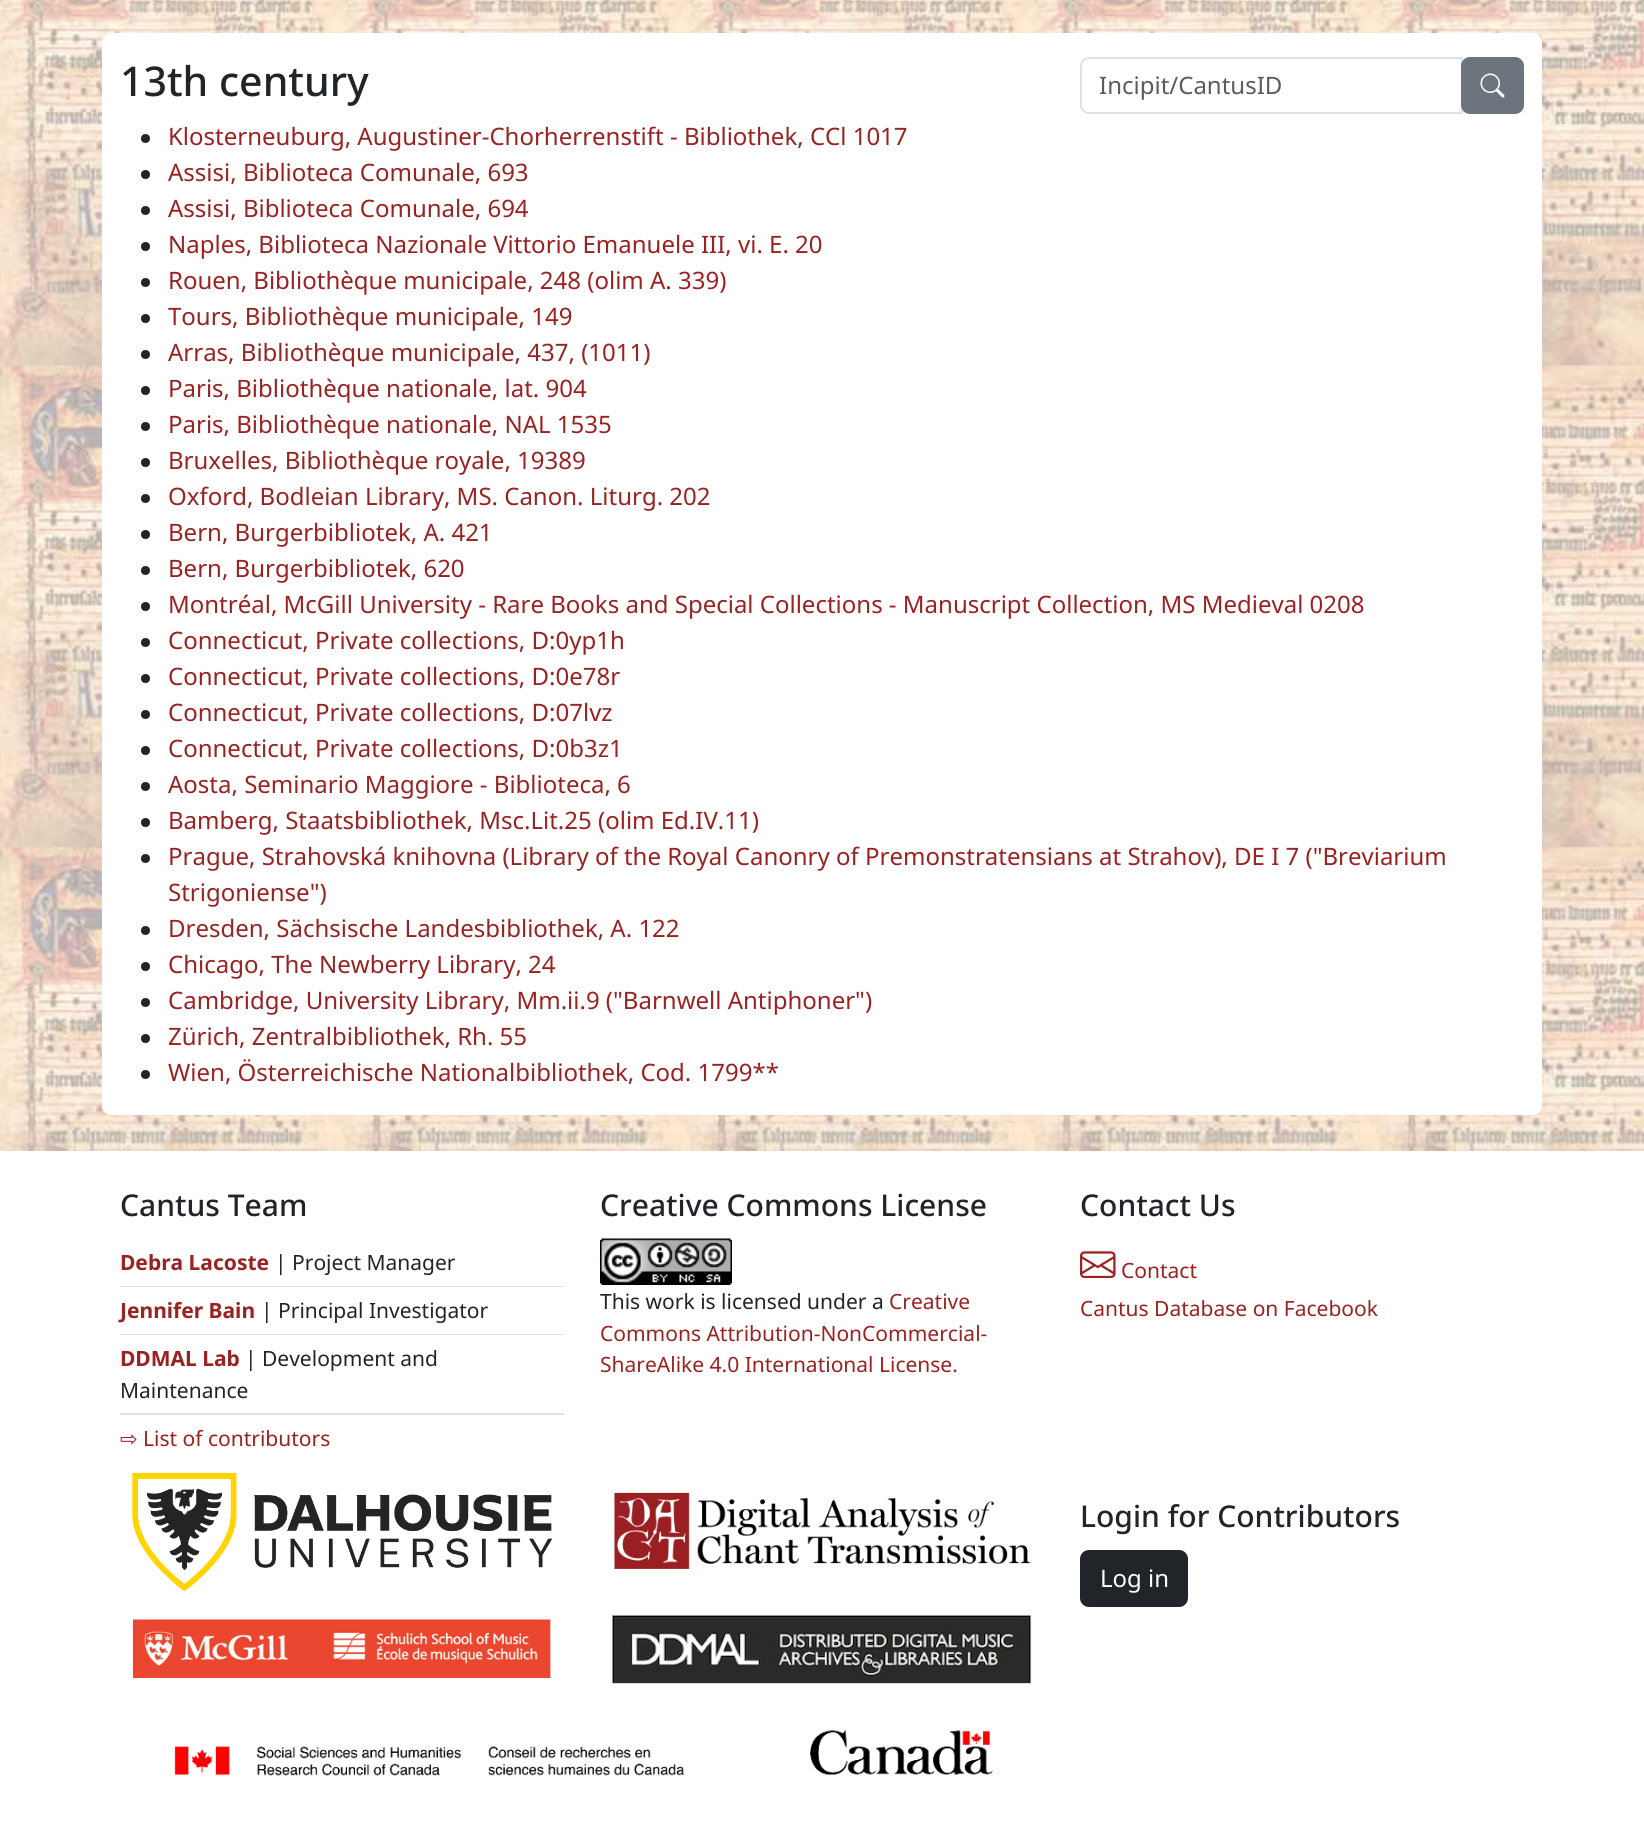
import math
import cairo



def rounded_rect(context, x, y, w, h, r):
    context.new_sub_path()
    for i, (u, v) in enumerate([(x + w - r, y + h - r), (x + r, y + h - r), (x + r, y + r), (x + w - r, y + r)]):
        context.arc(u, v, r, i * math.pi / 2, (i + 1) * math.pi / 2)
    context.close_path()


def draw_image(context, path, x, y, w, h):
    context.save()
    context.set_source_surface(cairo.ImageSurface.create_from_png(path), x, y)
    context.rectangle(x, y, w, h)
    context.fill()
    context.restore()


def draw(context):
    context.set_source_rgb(1, 1, 1)
    context.paint()
    draw_image(context, "images/1.png", 0, 0, 1644, 1151)
    context.set_source_rgb(1, 1, 1)
    rounded_rect(context, 102, 33, 1440, 1082, 9)
    context.fill()
    context.new_path()
    context.move_to(1089, 58)
    context.line_to(1462, 58)
    context.line_to(1462, 113)
    context.line_to(1089, 113)
    context.curve_to(1084.5, 113, 1081, 109.5, 1081, 105)
    context.line_to(1081, 66)
    context.curve_to(1081, 61.5, 1084.5, 58, 1089, 58)
    context.close_path()
    context.set_source_rgb(222 / 255, 226 / 255, 230 / 255)
    context.stroke()
    context.set_source_rgb(108 / 255, 117 / 255, 125 / 255)
    rounded_rect(context, 1462, 58, 61, 55, 8)
    context.fill_preserve()
    context.stroke()
    draw_image(context, "images/2.png", 1480, 73, 25, 25)
    context.set_source_rgb(33 / 255, 37 / 255, 41 / 255)
    context.arc(145.5, 138.5, 4.5, 0, 2 * math.pi)
    context.fill()
    context.arc(145.5, 174.5, 4.5, 0, 2 * math.pi)
    context.fill()
    context.arc(145.5, 210.5, 4.5, 0, 2 * math.pi)
    context.fill()
    context.arc(145.5, 246.5, 4.5, 0, 2 * math.pi)
    context.fill()
    context.arc(145.5, 282.5, 4.5, 0, 2 * math.pi)
    context.fill()
    context.arc(145.5, 318.5, 4.5, 0, 2 * math.pi)
    context.fill()
    context.arc(145.5, 354.5, 4.5, 0, 2 * math.pi)
    context.fill()
    context.arc(145.5, 390.5, 4.5, 0, 2 * math.pi)
    context.fill()
    context.arc(145.5, 426.5, 4.5, 0, 2 * math.pi)
    context.fill()
    context.arc(145.5, 462.5, 4.5, 0, 2 * math.pi)
    context.fill()
    context.arc(145.5, 498.5, 4.5, 0, 2 * math.pi)
    context.fill()
    context.arc(145.5, 534.5, 4.5, 0, 2 * math.pi)
    context.fill()
    context.arc(145.5, 570.5, 4.5, 0, 2 * math.pi)
    context.fill()
    context.arc(145.5, 606.5, 4.5, 0, 2 * math.pi)
    context.fill()
    context.arc(145.5, 642.5, 4.5, 0, 2 * math.pi)
    context.fill()
    context.arc(145.5, 678.5, 4.5, 0, 2 * math.pi)
    context.fill()
    context.arc(145.5, 714.5, 4.5, 0, 2 * math.pi)
    context.fill()
    context.arc(145.5, 750.5, 4.5, 0, 2 * math.pi)
    context.fill()
    context.arc(145.5, 786.5, 4.5, 0, 2 * math.pi)
    context.fill()
    context.arc(145.5, 822.5, 4.5, 0, 2 * math.pi)
    context.fill()
    context.arc(145.5, 858.5, 4.5, 0, 2 * math.pi)
    context.fill()
    context.arc(145.5, 930.5, 4.5, 0, 2 * math.pi)
    context.fill()
    context.arc(145.5, 966.5, 4.5, 0, 2 * math.pi)
    context.fill()
    context.arc(145.5, 1002.5, 4.5, 0, 2 * math.pi)
    context.fill()
    context.arc(145.5, 1038.5, 4.5, 0, 2 * math.pi)
    context.fill()
    context.arc(145.5, 1074.5, 4.5, 0, 2 * math.pi)
    context.fill()
    context.set_source_rgb(222 / 255, 226 / 255, 230 / 255)
    context.rectangle(120, 1286, 444, 1)
    context.fill()
    context.rectangle(120, 1334, 444, 1)
    context.fill()
    context.rectangle(120, 1413, 444, 2)
    context.fill()
    draw_image(context, "images/3.png", 600, 1238, 132, 47)
    draw_image(context, "images/4.png", 1080, 1251, 36, 27)
    draw_image(context, "images/5.png", 132, 1472, 420, 119)
    draw_image(context, "images/6.png", 613, 1492, 418, 77)
    draw_image(context, "images/7.png", 132, 1619, 419, 59)
    draw_image(context, "images/8.png", 612, 1615, 420, 69)
    draw_image(context, "images/9.png", 174, 1730, 819, 46)
    context.set_source_rgb(33 / 255, 37 / 255, 41 / 255)
    rounded_rect(context, 1081, 1551, 106, 55, 8)
    context.fill_preserve()
    context.stroke()
    context.select_font_face("Noto Sans Medium")
    context.set_font_size(41)
    context.move_to(120, 96)
    context.show_text("13th century")
    context.select_font_face("Noto Sans")
    context.set_font_size(24)
    context.set_source_rgb(89 / 255, 92 / 255, 95 / 255)
    context.move_to(1099, 94)
    context.show_text("Incipit/CantusID")
    context.set_source_rgb(153 / 255, 34 / 255, 34 / 255)
    context.move_to(168, 145)
    context.show_text("Klosterneuburg, Augustiner-Chorherrenstift - Bibliothek, CCl 1017")
    context.move_to(168, 181)
    context.show_text("Assisi, Biblioteca Comunale, 693")
    context.move_to(168, 217)
    context.show_text("Assisi, Biblioteca Comunale, 694")
    context.move_to(168, 253)
    context.show_text("Naples, Biblioteca Nazionale Vittorio Emanuele III, vi. E. 20")
    context.move_to(168, 289)
    context.show_text("Rouen, Bibliothèque municipale, 248 (olim A. 339)")
    context.move_to(168, 325)
    context.show_text("Tours, Bibliothèque municipale, 149")
    context.move_to(168, 361)
    context.show_text("Arras, Bibliothèque municipale, 437, (1011)")
    context.move_to(168, 397)
    context.show_text("Paris, Bibliothèque nationale, lat. 904")
    context.move_to(168, 433)
    context.show_text("Paris, Bibliothèque nationale, NAL 1535")
    context.move_to(168, 469)
    context.show_text("Bruxelles, Bibliothèque royale, 19389")
    context.move_to(168, 505)
    context.show_text("Oxford, Bodleian Library, MS. Canon. Liturg. 202")
    context.move_to(168, 541)
    context.show_text("Bern, Burgerbibliotek, A. 421")
    context.move_to(168, 577)
    context.show_text("Bern, Burgerbibliotek, 620")
    context.move_to(168, 613)
    context.show_text("Montréal, McGill University - Rare Books and Special Collections - Manuscript Collection, MS Medieval 0208")
    context.move_to(168, 649)
    context.show_text("Connecticut, Private collections, D:0yp1h")
    context.move_to(168, 685)
    context.show_text("Connecticut, Private collections, D:0e78r")
    context.move_to(168, 721)
    context.show_text("Connecticut, Private collections, D:07lvz")
    context.move_to(168, 757)
    context.show_text("Connecticut, Private collections, D:0b3z1")
    context.move_to(168, 793)
    context.show_text("Aosta, Seminario Maggiore - Biblioteca, 6")
    context.move_to(168, 829)
    context.show_text("Bamberg, Staatsbibliothek, Msc.Lit.25 (olim Ed.IV.11)")
    context.move_to(168, 865)
    context.show_text("Prague, Strahovská knihovna (Library of the Royal Canonry of Premonstratensians at Strahov), DE I 7 (\"Breviarium")
    context.move_to(168, 901)
    context.show_text("Strigoniense\")")
    context.move_to(168, 937)
    context.show_text("Dresden, Sächsische Landesbibliothek, A. 122")
    context.move_to(168, 973)
    context.show_text("Chicago, The Newberry Library, 24")
    context.move_to(168, 1009)
    context.show_text("Cambridge, University Library, Mm.ii.9 (\"Barnwell Antiphoner\")")
    context.move_to(168, 1045)
    context.show_text("Zürich, Zentralbibliothek, Rh. 55")
    context.move_to(168, 1081)
    context.show_text("Wien, Österreichische Nationalbibliothek, Cod. 1799**")
    context.select_font_face("Noto Sans Medium")
    context.set_font_size(30)
    context.set_source_rgb(33 / 255, 37 / 255, 41 / 255)
    context.move_to(120, 1216)
    context.show_text("Cantus Team")
    context.select_font_face("Noto Sans", cairo.FontSlant.NORMAL, cairo.FontWeight.BOLD)
    context.set_font_size(21)
    context.set_source_rgb(153 / 255, 34 / 255, 34 / 255)
    context.move_to(120, 1270)
    context.show_text("Debra Lacoste")
    context.select_font_face("Noto Sans")
    context.set_source_rgb(33 / 255, 37 / 255, 41 / 255)
    context.move_to(275, 1270)
    context.show_text("| Project Manager")
    context.select_font_face("Noto Sans", cairo.FontSlant.NORMAL, cairo.FontWeight.BOLD)
    context.set_source_rgb(153 / 255, 34 / 255, 34 / 255)
    context.move_to(120, 1318)
    context.show_text("Jennifer Bain")
    context.select_font_face("Noto Sans")
    context.set_source_rgb(33 / 255, 37 / 255, 41 / 255)
    context.move_to(261, 1318)
    context.show_text("| Principal Investigator")
    context.select_font_face("Noto Sans", cairo.FontSlant.NORMAL, cairo.FontWeight.BOLD)
    context.set_source_rgb(153 / 255, 34 / 255, 34 / 255)
    context.move_to(120, 1366)
    context.show_text("DDMAL Lab")
    context.select_font_face("Noto Sans")
    context.set_source_rgb(33 / 255, 37 / 255, 41 / 255)
    context.move_to(245, 1366)
    context.show_text("| Development and")
    context.move_to(120, 1398)
    context.show_text("Maintenance")
    context.select_font_face("DejaVu Sans")
    context.set_source_rgb(153 / 255, 34 / 255, 34 / 255)
    context.move_to(120, 1446)
    context.show_text("⇨")
    context.select_font_face("Noto Sans")
    context.move_to(143, 1446)
    context.show_text("List of contributors")
    context.select_font_face("Noto Sans Medium")
    context.set_font_size(30)
    context.set_source_rgb(33 / 255, 37 / 255, 41 / 255)
    context.move_to(600, 1216)
    context.show_text("Creative Commons License")
    context.select_font_face("Noto Sans")
    context.set_font_size(21)
    context.move_to(600, 1309)
    context.show_text("This work is licensed under a")
    context.set_source_rgb(153 / 255, 34 / 255, 34 / 255)
    context.move_to(889, 1309)
    context.show_text("Creative")
    context.move_to(600, 1341)
    context.show_text("Commons Attribution-NonCommercial-")
    context.move_to(600, 1372)
    context.show_text("ShareAlike 4.0 International License.")
    context.select_font_face("Noto Sans Medium")
    context.set_font_size(30)
    context.set_source_rgb(33 / 255, 37 / 255, 41 / 255)
    context.move_to(1080, 1216)
    context.show_text("Contact Us")
    context.select_font_face("Noto Sans")
    context.set_font_size(21)
    context.set_source_rgb(153 / 255, 34 / 255, 34 / 255)
    context.move_to(1121, 1278)
    context.show_text("Contact")
    context.move_to(1080, 1316)
    context.show_text("Cantus Database on Facebook")
    context.select_font_face("Noto Sans Medium")
    context.set_font_size(30)
    context.set_source_rgb(33 / 255, 37 / 255, 41 / 255)
    context.move_to(1080, 1527)
    context.show_text("Login for Contributors")
    context.select_font_face("Noto Sans")
    context.set_font_size(24)
    context.set_source_rgb(1, 1, 1)
    context.move_to(1100, 1587)
    context.show_text("Log in")


surface = cairo.ImageSurface(cairo.Format.RGB24, 1644, 1831)
context = cairo.Context(surface)
options = cairo.FontOptions()
options.set_hint_metrics(cairo.HintMetrics.OFF)
options.set_hint_style(cairo.HintStyle.NONE)
context.set_font_options(options)
context.set_miter_limit(4)
draw(context)
surface.write_to_png("out.png")
